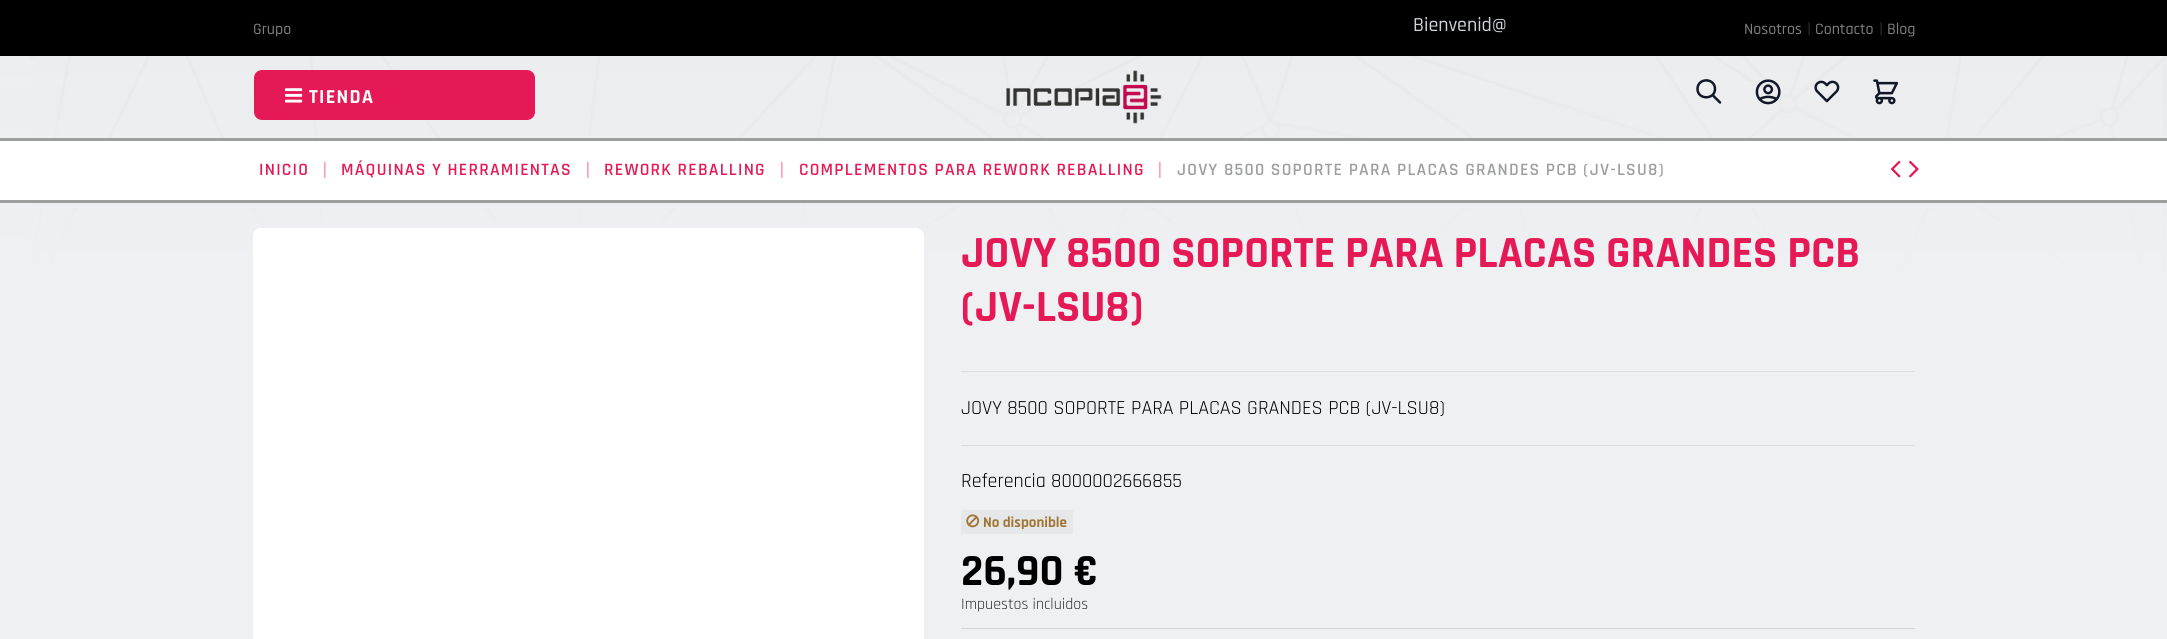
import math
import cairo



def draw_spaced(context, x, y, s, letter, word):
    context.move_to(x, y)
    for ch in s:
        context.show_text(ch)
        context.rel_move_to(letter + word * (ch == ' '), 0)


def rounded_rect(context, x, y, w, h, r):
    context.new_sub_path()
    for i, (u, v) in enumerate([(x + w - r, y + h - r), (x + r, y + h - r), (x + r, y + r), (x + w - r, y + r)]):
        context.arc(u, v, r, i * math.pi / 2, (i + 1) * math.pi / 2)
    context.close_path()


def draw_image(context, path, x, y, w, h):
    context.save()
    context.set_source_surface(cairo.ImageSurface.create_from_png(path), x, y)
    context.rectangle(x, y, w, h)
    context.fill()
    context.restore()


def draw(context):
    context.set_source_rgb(1, 1, 1)
    context.paint()
    draw_image(context, "images/1.png", 0, 56, 2167, 583)
    context.set_source_rgb(0, 0, 0)
    context.rectangle(0, 0, 2167, 56)
    context.fill()
    context.set_source_rgb(229 / 255, 25 / 255, 85 / 255)
    rounded_rect(context, 254, 70, 281, 50, 8)
    context.fill()
    draw_image(context, "images/2.png", 285, 88, 18, 15)
    draw_image(context, "images/3.png", 1006, 70, 156, 54)
    context.new_path()
    context.move_to(1720, 102.5)
    context.line_to(1712.5, 95)
    context.move_to(1715, 89)
    context.curve_to(1715, 100, 1697.5, 100, 1697.5, 89)
    context.curve_to(1697.5, 77.5, 1715, 77.5, 1715, 89)
    context.close_path()
    context.set_source_rgb(17 / 255, 24 / 255, 39 / 255)
    context.set_line_width(2.5)
    context.set_line_cap(cairo.LineCap.ROUND)
    context.set_line_join(cairo.LineJoin.ROUND)
    context.stroke()
    draw_image(context, "images/4.png", 1755, 79, 26, 26)
    draw_image(context, "images/5.png", 1814, 80, 26, 23)
    draw_image(context, "images/6.png", 1873, 79, 26, 26)
    context.set_source_rgb(1, 1, 1)
    context.rectangle(0, 141, 2167, 59)
    context.fill()
    context.set_source_rgb(157 / 255, 158 / 255, 158 / 255)
    context.rectangle(0, 138, 2167, 3)
    context.fill()
    context.rectangle(0, 200, 2167, 3)
    context.fill()
    draw_image(context, "images/7.png", 1890, 160, 11, 18)
    draw_image(context, "images/8.png", 1909, 160, 10, 18)
    context.set_source_rgb(1, 1, 1)
    context.new_path()
    context.move_to(261, 228)
    context.line_to(916, 228)
    context.curve_to(920.5, 228, 924, 231.5, 924, 236)
    context.line_to(924, 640)
    context.line_to(253, 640)
    context.line_to(253, 236)
    context.curve_to(253, 231.5, 256.5, 228, 261, 228)
    context.close_path()
    context.fill()
    context.set_source_rgb(220 / 255, 220 / 255, 222 / 255)
    context.rectangle(961, 371, 954, 1)
    context.fill()
    context.rectangle(961, 445, 954, 1)
    context.fill()
    context.set_source_rgb(230 / 255, 231 / 255, 233 / 255)
    context.rectangle(961, 510, 112, 24)
    context.fill()
    draw_image(context, "images/9.png", 966, 514, 14, 14)
    context.set_source_rgb(212 / 255, 212 / 255, 212 / 255)
    context.rectangle(961, 628, 954, 1)
    context.fill()
    context.select_font_face("Rajdhani Medium")
    context.set_font_size(16)
    context.set_source_rgb(128 / 255, 128 / 255, 128 / 255)
    context.move_to(253, 34)
    context.show_text("Grupo")
    context.set_font_size(20)
    context.set_source_rgb(209 / 255, 213 / 255, 219 / 255)
    context.move_to(1413, 31)
    context.show_text("Bienvenid@")
    context.set_font_size(16)
    context.set_source_rgb(128 / 255, 128 / 255, 128 / 255)
    context.move_to(1744, 34)
    context.show_text("Nosotros")
    context.set_font_size(20)
    context.set_source_rgb(48 / 255, 48 / 255, 48 / 255)
    context.move_to(1807, 35)
    context.show_text("|")
    context.set_font_size(16)
    context.set_source_rgb(128 / 255, 128 / 255, 128 / 255)
    context.move_to(1815, 34)
    context.show_text("Contacto")
    context.set_font_size(20)
    context.set_source_rgb(48 / 255, 48 / 255, 48 / 255)
    context.move_to(1879, 35)
    context.show_text("|")
    context.set_font_size(16)
    context.set_source_rgb(128 / 255, 128 / 255, 128 / 255)
    context.move_to(1887, 34)
    context.show_text("Blog")
    context.select_font_face("Rajdhani", cairo.FontSlant.NORMAL, cairo.FontWeight.BOLD)
    context.set_font_size(20)
    context.set_source_rgb(1, 1, 1)
    draw_spaced(context, 309, 103, "TIENDA", 1.25, 0)
    context.select_font_face("Rajdhani SemiBold")
    context.set_font_size(17.5)
    context.set_source_rgb(229 / 255, 25 / 255, 85 / 255)
    draw_spaced(context, 259, 175, "INICIO", 1.25, 0)
    context.set_font_size(25)
    context.set_source_rgb(245 / 255, 163 / 255, 187 / 255)
    draw_spaced(context, 322, 178, "|", 1.25, 0)
    context.set_font_size(17.5)
    context.set_source_rgb(229 / 255, 25 / 255, 85 / 255)
    draw_spaced(context, 341, 175, "MÁQUINAS Y HERRAMIENTAS", 1.25, 0)
    context.set_font_size(25)
    context.set_source_rgb(245 / 255, 163 / 255, 187 / 255)
    draw_spaced(context, 585, 178, "|", 1.25, 0)
    context.set_font_size(17.5)
    context.set_source_rgb(229 / 255, 25 / 255, 85 / 255)
    draw_spaced(context, 604, 175, "REWORK REBALLING", 1.25, 0)
    context.set_font_size(25)
    context.set_source_rgb(245 / 255, 163 / 255, 187 / 255)
    draw_spaced(context, 779, 178, "|", 1.25, 0)
    context.set_font_size(17.5)
    context.set_source_rgb(229 / 255, 25 / 255, 85 / 255)
    draw_spaced(context, 799, 175, "COMPLEMENTOS PARA REWORK REBALLING", 1.25, 0)
    context.set_font_size(25)
    context.set_source_rgb(245 / 255, 163 / 255, 187 / 255)
    draw_spaced(context, 1157, 178, "|", 1.25, 0)
    context.set_font_size(17.5)
    context.set_source_rgb(157 / 255, 158 / 255, 158 / 255)
    draw_spaced(context, 1177, 175, "JOVY 8500 SOPORTE PARA PLACAS GRANDES PCB (JV-LSU8)", 1.25, 0)
    context.select_font_face("Rajdhani", cairo.FontSlant.NORMAL, cairo.FontWeight.BOLD)
    context.set_font_size(45)
    context.set_source_rgb(229 / 255, 25 / 255, 85 / 255)
    context.move_to(961, 267)
    context.show_text("JOVY 8500 SOPORTE PARA PLACAS GRANDES PCB")
    context.move_to(961, 321)
    context.show_text("(JV-LSU8)")
    context.select_font_face("Rajdhani")
    context.set_font_size(20)
    context.set_source_rgb(0, 0, 0)
    context.move_to(961, 414)
    context.show_text("JOVY 8500 SOPORTE PARA PLACAS GRANDES PCB (JV-LSU8)")
    context.move_to(961, 487)
    context.show_text("Referencia 8000002666855")
    context.select_font_face("Rajdhani", cairo.FontSlant.NORMAL, cairo.FontWeight.BOLD)
    context.set_font_size(15)
    context.set_source_rgb(161 / 255, 119 / 255, 56 / 255)
    context.move_to(983, 527)
    context.show_text("No disponible")
    context.set_font_size(45)
    context.set_source_rgb(0, 0, 0)
    context.move_to(961, 585)
    context.show_text("26,90 €")
    context.select_font_face("Rajdhani")
    context.set_font_size(16)
    context.set_source_rgb(48 / 255, 48 / 255, 48 / 255)
    context.move_to(961, 609)
    context.show_text("Impuestos incluidos")


surface = cairo.ImageSurface(cairo.Format.RGB24, 2167, 639)
context = cairo.Context(surface)
options = cairo.FontOptions()
options.set_hint_metrics(cairo.HintMetrics.OFF)
options.set_hint_style(cairo.HintStyle.NONE)
context.set_font_options(options)
context.set_miter_limit(4)
draw(context)
surface.write_to_png("out.png")
